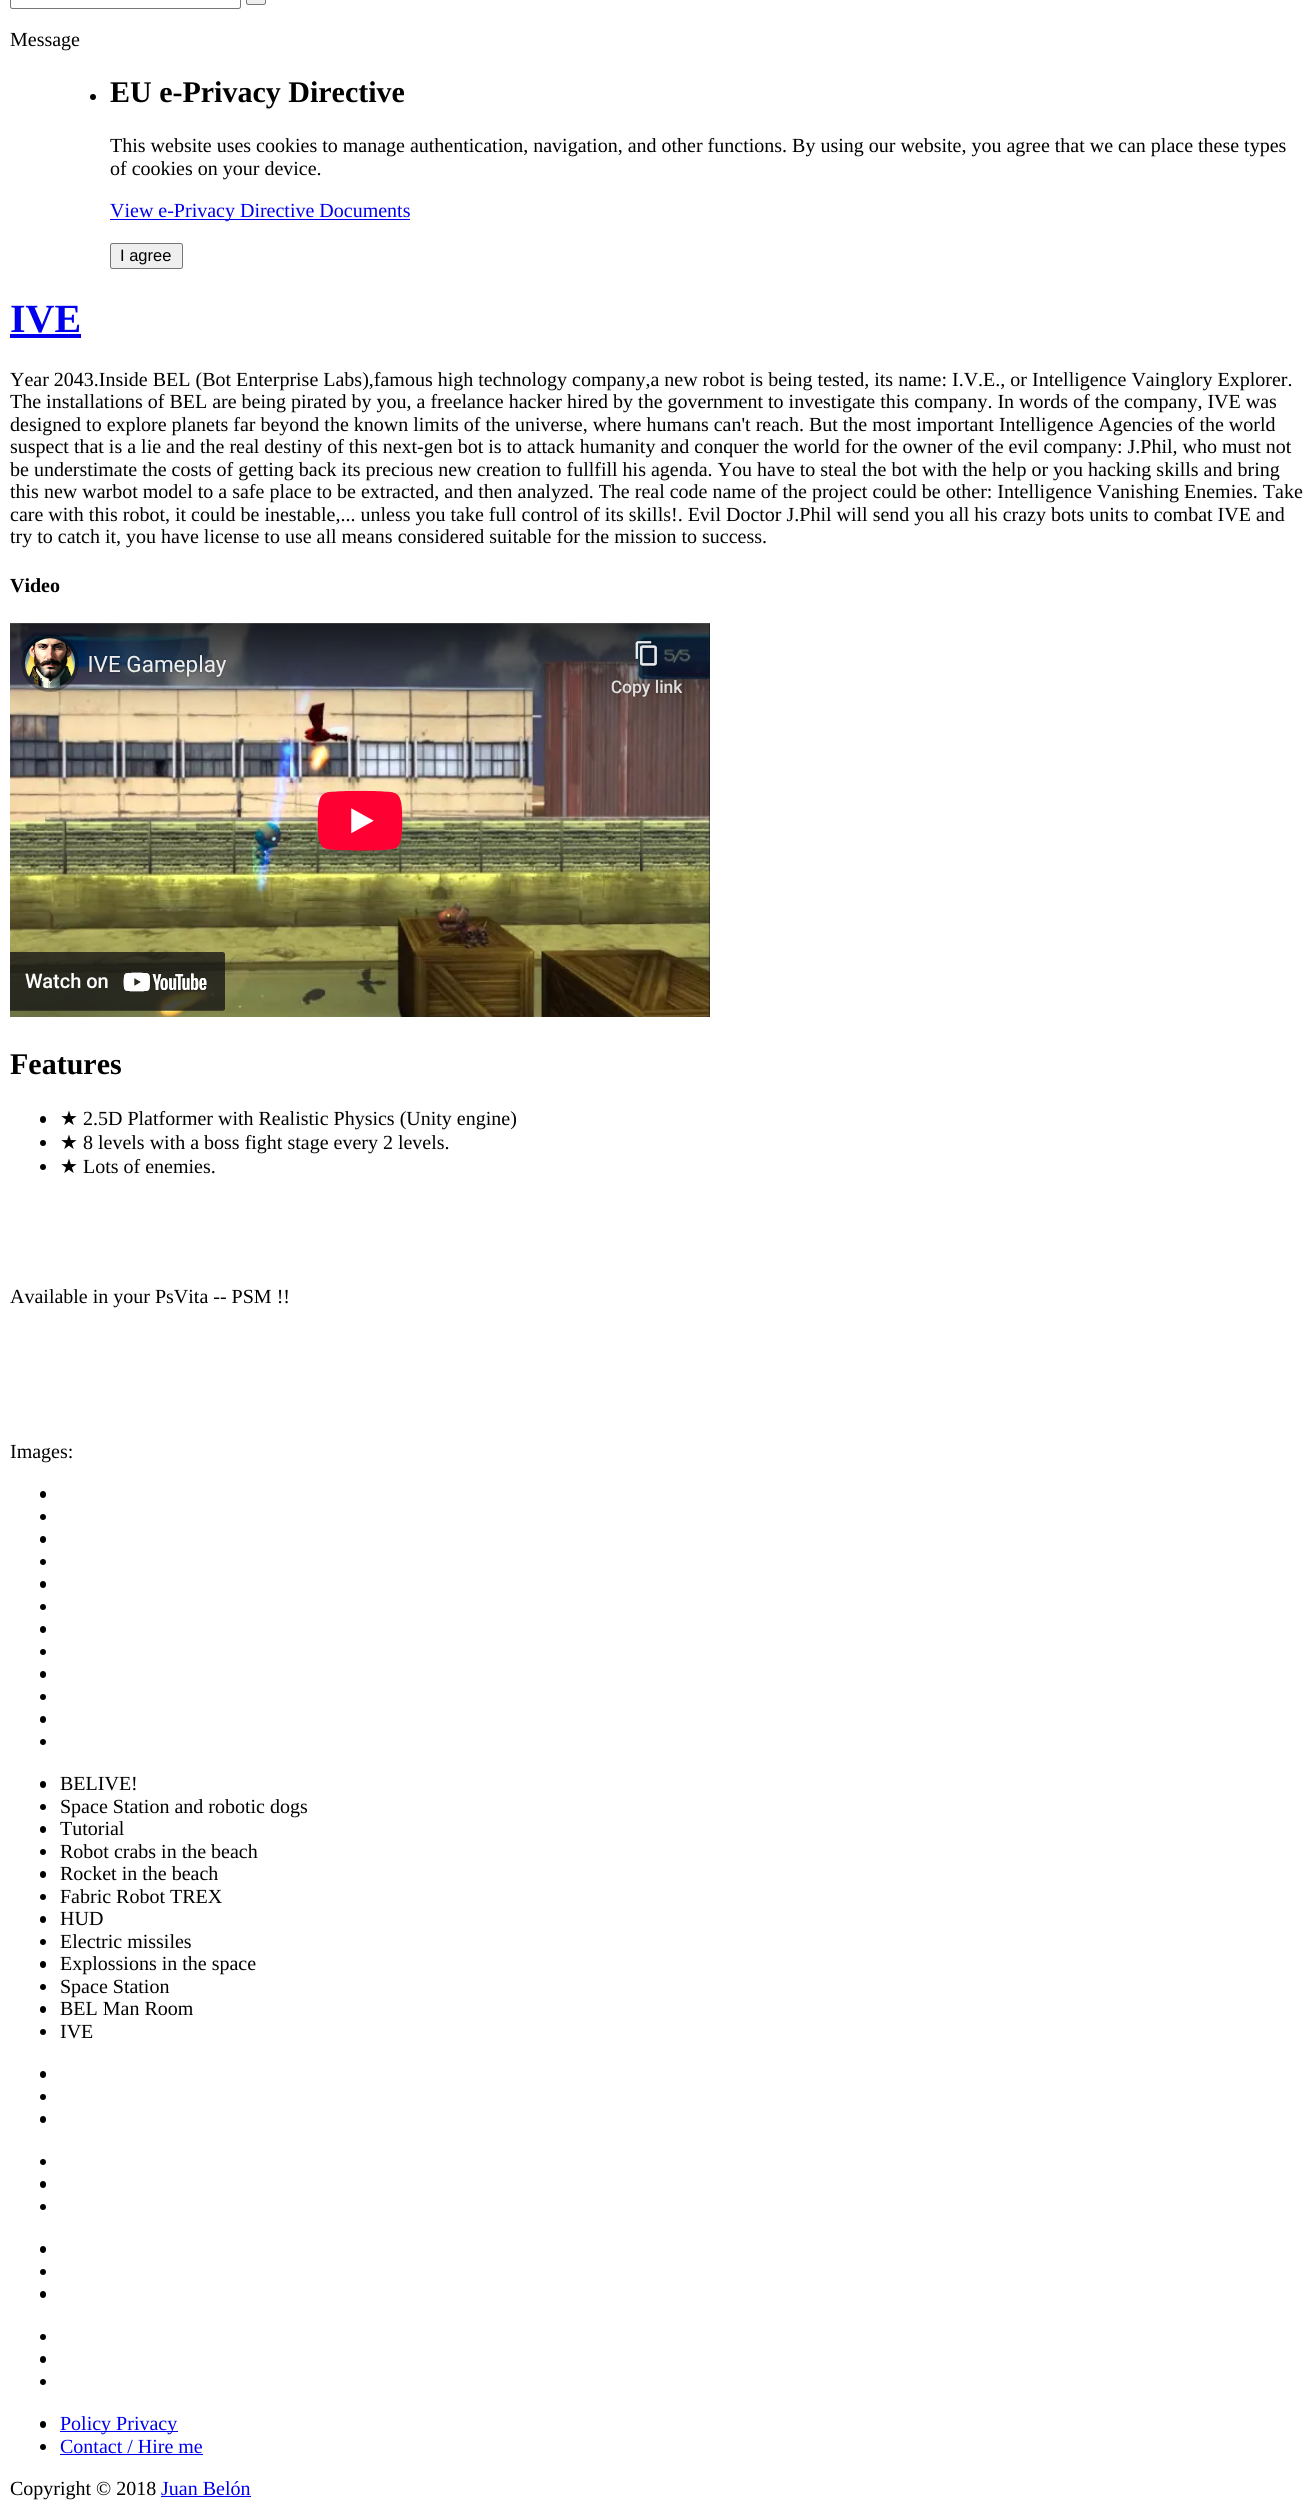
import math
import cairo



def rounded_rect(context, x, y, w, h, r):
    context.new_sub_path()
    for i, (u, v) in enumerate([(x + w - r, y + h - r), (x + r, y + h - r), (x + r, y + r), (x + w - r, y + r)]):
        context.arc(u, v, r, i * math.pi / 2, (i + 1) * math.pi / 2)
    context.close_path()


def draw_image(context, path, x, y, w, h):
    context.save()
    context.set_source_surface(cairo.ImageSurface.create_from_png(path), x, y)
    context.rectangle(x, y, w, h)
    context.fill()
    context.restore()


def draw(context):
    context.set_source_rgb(1, 1, 1)
    context.paint()
    rounded_rect(context, 10.5, -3.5, 230, 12, 2)
    context.set_source_rgb(118 / 255, 118 / 255, 118 / 255)
    context.set_line_width(1)
    context.stroke()
    context.set_source_rgb(239 / 255, 239 / 255, 239 / 255)
    rounded_rect(context, 246.5, -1.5, 19, 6, 2)
    context.fill_preserve()
    context.set_source_rgb(118 / 255, 118 / 255, 118 / 255)
    context.stroke()
    context.set_source_rgb(0, 0, 0)
    context.arc(93, 97, 3, 0, 2 * math.pi)
    context.fill()
    context.set_source_rgb(0, 0, 238 / 255)
    context.rectangle(110, 219, 300, 1)
    context.fill()
    context.set_source_rgb(239 / 255, 239 / 255, 239 / 255)
    rounded_rect(context, 110.5, 243.5, 72, 25, 2)
    context.fill_preserve()
    context.set_source_rgb(118 / 255, 118 / 255, 118 / 255)
    context.stroke()
    context.set_source_rgb(0, 0, 238 / 255)
    context.rectangle(10, 334, 71, 4)
    context.fill()
    draw_image(context, "images/1.png", 10, 623, 700, 394)
    context.set_source_rgb(0, 0, 0)
    rounded_rect(context, 40, 1116, 6, 7, 3)
    context.fill()
    context.arc(43, 1143, 3, 0, 2 * math.pi)
    context.fill()
    context.arc(43, 1167, 3, 0, 2 * math.pi)
    context.fill()
    rounded_rect(context, 40, 1491, 6, 7, 3)
    context.fill()
    context.arc(43, 1517, 3, 0, 2 * math.pi)
    context.fill()
    rounded_rect(context, 40, 1536, 6, 7, 3)
    context.fill()
    context.arc(43, 1562, 3, 0, 2 * math.pi)
    context.fill()
    rounded_rect(context, 40, 1581, 6, 7, 3)
    context.fill()
    context.arc(43, 1607, 3, 0, 2 * math.pi)
    context.fill()
    rounded_rect(context, 40, 1626, 6, 7, 3)
    context.fill()
    context.arc(43, 1652, 3, 0, 2 * math.pi)
    context.fill()
    rounded_rect(context, 40, 1671, 6, 7, 3)
    context.fill()
    context.arc(43, 1697, 3, 0, 2 * math.pi)
    context.fill()
    rounded_rect(context, 40, 1716, 6, 7, 3)
    context.fill()
    context.arc(43, 1742, 3, 0, 2 * math.pi)
    context.fill()
    rounded_rect(context, 40, 1781, 6, 7, 3)
    context.fill()
    context.arc(43, 1807, 3, 0, 2 * math.pi)
    context.fill()
    rounded_rect(context, 40, 1826, 6, 7, 3)
    context.fill()
    context.arc(43, 1852, 3, 0, 2 * math.pi)
    context.fill()
    rounded_rect(context, 40, 1871, 6, 7, 3)
    context.fill()
    context.arc(43, 1897, 3, 0, 2 * math.pi)
    context.fill()
    rounded_rect(context, 40, 1916, 6, 7, 3)
    context.fill()
    context.arc(43, 1942, 3, 0, 2 * math.pi)
    context.fill()
    rounded_rect(context, 40, 1961, 6, 7, 3)
    context.fill()
    context.arc(43, 1987, 3, 0, 2 * math.pi)
    context.fill()
    rounded_rect(context, 40, 2006, 6, 7, 3)
    context.fill()
    context.arc(43, 2032, 3, 0, 2 * math.pi)
    context.fill()
    rounded_rect(context, 40, 2071, 6, 7, 3)
    context.fill()
    context.arc(43, 2097, 3, 0, 2 * math.pi)
    context.fill()
    rounded_rect(context, 40, 2116, 6, 7, 3)
    context.fill()
    context.arc(43, 2162, 3, 0, 2 * math.pi)
    context.fill()
    rounded_rect(context, 40, 2181, 6, 7, 3)
    context.fill()
    context.arc(43, 2207, 3, 0, 2 * math.pi)
    context.fill()
    rounded_rect(context, 40, 2246, 6, 7, 3)
    context.fill()
    context.arc(43, 2272, 3, 0, 2 * math.pi)
    context.fill()
    rounded_rect(context, 40, 2291, 6, 7, 3)
    context.fill()
    context.arc(43, 2337, 3, 0, 2 * math.pi)
    context.fill()
    rounded_rect(context, 40, 2356, 6, 7, 3)
    context.fill()
    context.arc(43, 2382, 3, 0, 2 * math.pi)
    context.fill()
    rounded_rect(context, 40, 2421, 6, 7, 3)
    context.fill()
    context.set_source_rgb(0, 0, 238 / 255)
    context.rectangle(60, 2431, 118, 1)
    context.fill()
    context.set_source_rgb(0, 0, 0)
    context.arc(43, 2447, 3, 0, 2 * math.pi)
    context.fill()
    context.set_source_rgb(0, 0, 238 / 255)
    context.rectangle(60, 2454, 143, 1)
    context.fill()
    context.rectangle(161, 2496, 90, 1)
    context.fill()
    context.select_font_face("Liberation Serif")
    context.set_font_size(20)
    context.set_source_rgb(0, 0, 0)
    context.move_to(10, 46)
    context.show_text("Message")
    context.select_font_face("Liberation Serif", cairo.FontSlant.NORMAL, cairo.FontWeight.BOLD)
    context.set_font_size(30)
    context.move_to(110, 102)
    context.show_text("EU e-Privacy Directive")
    context.select_font_face("Liberation Serif")
    context.set_font_size(20)
    context.move_to(110, 152)
    context.show_text("This website uses cookies to manage authentication, navigation, and other functions. By using our website, you agree that we can place these types")
    context.move_to(110, 175)
    context.show_text("of cookies on your device.")
    context.set_source_rgb(0, 0, 238 / 255)
    context.move_to(110, 217)
    context.show_text("View e-Privacy Directive Documents")
    context.select_font_face("Liberation Sans")
    context.set_font_size(16.5)
    context.set_source_rgb(0, 0, 0)
    context.move_to(120, 261)
    context.show_text("I agree")
    context.select_font_face("Liberation Serif", cairo.FontSlant.NORMAL, cairo.FontWeight.BOLD)
    context.set_font_size(40)
    context.set_source_rgb(0, 0, 238 / 255)
    context.move_to(10, 332)
    context.show_text("IVE")
    context.select_font_face("Liberation Serif")
    context.set_font_size(20)
    context.set_source_rgb(0, 0, 0)
    context.move_to(10, 386)
    context.show_text("Year 2043.Inside BEL (Bot Enterprise Labs),famous high technology company,a new robot is being tested, its name: I.V.E., or Intelligence Vainglory Explorer.")
    context.move_to(10, 408)
    context.show_text("The installations of BEL are being pirated by you, a freelance hacker hired by the government to investigate this company. In words of the company, IVE was")
    context.move_to(10, 431)
    context.show_text("designed to explore planets far beyond the known limits of the universe, where humans can't reach. But the most important Intelligence Agencies of the world")
    context.move_to(10, 453)
    context.show_text("suspect that is a lie and the real destiny of this next-gen bot is to attack humanity and conquer the world for the owner of the evil company: J.Phil, who must not")
    context.move_to(10, 476)
    context.show_text("be understimate the costs of getting back its precious new creation to fullfill his agenda. You have to steal the bot with the help or you hacking skills and bring")
    context.move_to(10, 498)
    context.show_text("this new warbot model to a safe place to be extracted, and then analyzed. The real code name of the project could be other: Intelligence Vanishing Enemies. Take")
    context.move_to(10, 521)
    context.show_text("care with this robot, it could be inestable,... unless you take full control of its skills!. Evil Doctor J.Phil will send you all his crazy bots units to combat IVE and")
    context.move_to(10, 543)
    context.show_text("try to catch it, you have license to use all means considered suitable for the mission to success.")
    context.select_font_face("Liberation Serif", cairo.FontSlant.NORMAL, cairo.FontWeight.BOLD)
    context.move_to(10, 592)
    context.show_text("Video")
    context.set_font_size(30)
    context.move_to(10, 1074)
    context.show_text("Features")
    context.select_font_face("DejaVu Sans")
    context.set_font_size(20)
    context.move_to(60, 1125)
    context.show_text("★")
    context.select_font_face("Liberation Serif")
    context.move_to(83, 1125)
    context.show_text("2.5D Platformer with Realistic Physics (Unity engine)")
    context.select_font_face("DejaVu Sans")
    context.move_to(60, 1149)
    context.show_text("★")
    context.select_font_face("Liberation Serif")
    context.move_to(83, 1149)
    context.show_text("8 levels with a boss fight stage every 2 levels.")
    context.select_font_face("DejaVu Sans")
    context.move_to(60, 1173)
    context.show_text("★")
    context.select_font_face("Liberation Serif")
    context.move_to(83, 1173)
    context.show_text("Lots of enemies.")
    context.move_to(10, 1303)
    context.show_text("Available in your PsVita -- PSM !!")
    context.move_to(10, 1458)
    context.show_text("Images:")
    context.move_to(60, 1790)
    context.show_text("BELIVE!")
    context.move_to(60, 1813)
    context.show_text("Space Station and robotic dogs")
    context.move_to(60, 1835)
    context.show_text("Tutorial")
    context.move_to(60, 1858)
    context.show_text("Robot crabs in the beach")
    context.move_to(60, 1880)
    context.show_text("Rocket in the beach")
    context.move_to(60, 1903)
    context.show_text("Fabric Robot TREX")
    context.move_to(60, 1925)
    context.show_text("HUD")
    context.move_to(60, 1948)
    context.show_text("Electric missiles")
    context.move_to(60, 1970)
    context.show_text("Explossions in the space")
    context.move_to(60, 1993)
    context.show_text("Space Station")
    context.move_to(60, 2015)
    context.show_text("BEL Man Room")
    context.move_to(60, 2038)
    context.show_text("IVE")
    context.set_source_rgb(0, 0, 238 / 255)
    context.move_to(60, 2430)
    context.show_text("Policy Privacy")
    context.move_to(60, 2453)
    context.show_text("Contact / Hire me")
    context.set_source_rgb(0, 0, 0)
    context.move_to(10, 2495)
    context.show_text("Copyright © 2018")
    context.set_source_rgb(0, 0, 238 / 255)
    context.move_to(161, 2495)
    context.show_text("Juan Belón")


surface = cairo.ImageSurface(cairo.Format.RGB24, 1315, 2520)
context = cairo.Context(surface)
options = cairo.FontOptions()
options.set_hint_metrics(cairo.HintMetrics.OFF)
options.set_hint_style(cairo.HintStyle.NONE)
context.set_font_options(options)
context.set_miter_limit(4)
draw(context)
surface.write_to_png("out.png")
